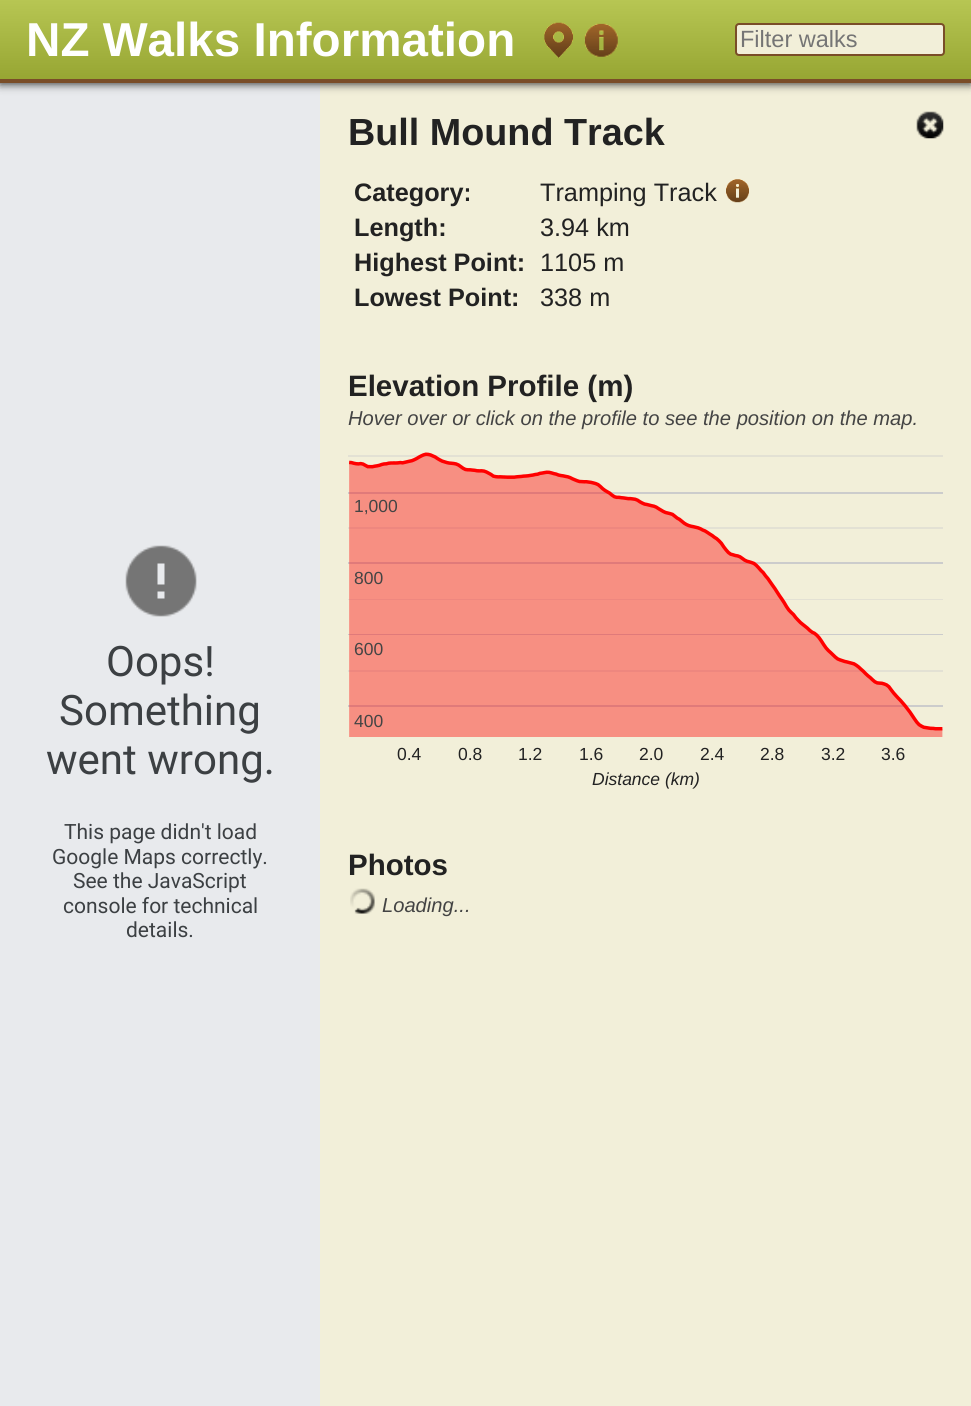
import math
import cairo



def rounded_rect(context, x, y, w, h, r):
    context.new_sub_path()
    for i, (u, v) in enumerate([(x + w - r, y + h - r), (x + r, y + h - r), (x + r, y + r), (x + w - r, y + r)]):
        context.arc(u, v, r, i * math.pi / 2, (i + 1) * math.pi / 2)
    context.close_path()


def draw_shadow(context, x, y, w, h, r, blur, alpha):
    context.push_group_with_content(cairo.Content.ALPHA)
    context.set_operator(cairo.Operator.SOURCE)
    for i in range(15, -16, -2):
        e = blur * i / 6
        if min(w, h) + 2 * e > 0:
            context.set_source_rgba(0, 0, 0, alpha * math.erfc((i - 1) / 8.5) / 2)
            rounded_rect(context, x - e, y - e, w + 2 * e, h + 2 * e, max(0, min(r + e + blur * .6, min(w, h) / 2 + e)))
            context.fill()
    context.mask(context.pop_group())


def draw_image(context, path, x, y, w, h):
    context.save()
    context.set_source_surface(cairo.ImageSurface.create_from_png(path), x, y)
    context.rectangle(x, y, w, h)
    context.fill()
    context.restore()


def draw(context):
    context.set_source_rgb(242 / 255, 239 / 255, 217 / 255)
    context.paint()
    context.set_source_rgb(232 / 255, 234 / 255, 237 / 255)
    context.rectangle(0, 83, 320, 1323)
    context.fill()
    context.set_source_rgb(51 / 255, 51 / 255, 51 / 255)
    draw_shadow(context, 0, 2, 971, 82, 0, 4.5, 1)
    gradient = cairo.LinearGradient(486, 0, 486, 79)
    gradient.add_color_stop_rgba(0, 183 / 255, 198 / 255, 83 / 255, 1)
    gradient.add_color_stop_rgba(1, 151 / 255, 166 / 255, 51 / 255, 1)
    context.set_source(gradient)
    context.rectangle(0, 0, 971, 79)
    context.fill()
    context.set_source_rgb(122 / 255, 77 / 255, 40 / 255)
    context.rectangle(0, 79, 971, 4)
    context.fill()
    draw_image(context, "images/1.png", 544, 22, 29, 36)
    draw_image(context, "images/2.png", 584, 23, 34, 34)
    context.set_source_rgb(242 / 255, 239 / 255, 217 / 255)
    rounded_rect(context, 736, 24, 208, 31, 3)
    context.fill_preserve()
    context.set_source_rgb(122 / 255, 77 / 255, 40 / 255)
    context.stroke()
    draw_image(context, "images/3.png", 125, 545, 72, 72)
    draw_image(context, "images/4.png", 916, 111, 28, 28)
    draw_image(context, "images/5.png", 726, 179, 23, 24)
    draw_image(context, "images/6.png", 348, 452, 595, 285)
    draw_image(context, "images/7.png", 350, 888, 25, 26)
    context.select_font_face("Liberation Sans", cairo.FontSlant.NORMAL, cairo.FontWeight.BOLD)
    context.set_font_size(47.6)
    context.set_source_rgb(1, 1, 1)
    context.move_to(26, 56)
    context.show_text("NZ Walks Information")
    context.select_font_face("Liberation Sans")
    context.set_font_size(23.5)
    context.set_source_rgb(117 / 255, 117 / 255, 117 / 255)
    context.move_to(740, 47)
    context.show_text("Filter walks")
    context.select_font_face("Roboto")
    context.set_font_size(42)
    context.set_source_rgb(60 / 255, 64 / 255, 67 / 255)
    context.move_to(106, 676)
    context.show_text("Oops!")
    context.move_to(59, 725)
    context.show_text("Something")
    context.move_to(46, 774)
    context.show_text("went wrong.")
    context.set_font_size(21)
    context.move_to(64, 839)
    context.show_text("This page didn't load")
    context.move_to(52, 864)
    context.show_text("Google Maps correctly.")
    context.move_to(73, 888)
    context.show_text("See the JavaScript")
    context.move_to(63, 913)
    context.show_text("console for technical")
    context.move_to(126, 937)
    context.show_text("details.")
    context.select_font_face("Liberation Sans", cairo.FontSlant.NORMAL, cairo.FontWeight.BOLD)
    context.set_font_size(37.75)
    context.set_source_rgb(34 / 255, 34 / 255, 34 / 255)
    context.move_to(348, 145)
    context.show_text("Bull Mound Track")
    context.set_font_size(25.25)
    context.move_to(354, 201)
    context.show_text("Category:")
    context.select_font_face("Liberation Sans")
    context.move_to(540, 201)
    context.show_text("Tramping Track")
    context.select_font_face("Liberation Sans", cairo.FontSlant.NORMAL, cairo.FontWeight.BOLD)
    context.move_to(354, 236)
    context.show_text("Length:")
    context.select_font_face("Liberation Sans")
    context.move_to(540, 236)
    context.show_text("3.94 km")
    context.select_font_face("Liberation Sans", cairo.FontSlant.NORMAL, cairo.FontWeight.BOLD)
    context.move_to(354, 271)
    context.show_text("Highest Point:")
    context.select_font_face("Liberation Sans")
    context.move_to(540, 271)
    context.show_text("1105 m")
    context.select_font_face("Liberation Sans", cairo.FontSlant.NORMAL, cairo.FontWeight.BOLD)
    context.move_to(354, 306)
    context.show_text("Lowest Point:")
    context.select_font_face("Liberation Sans")
    context.move_to(540, 306)
    context.show_text("338 m")
    context.select_font_face("Liberation Sans", cairo.FontSlant.NORMAL, cairo.FontWeight.BOLD)
    context.set_font_size(29.5)
    context.move_to(348, 396)
    context.show_text("Elevation Profile (m)")
    context.select_font_face("Liberation Sans", cairo.FontSlant.ITALIC)
    context.set_font_size(20.15)
    context.set_source_rgb(68 / 255, 68 / 255, 68 / 255)
    context.move_to(348, 425)
    context.show_text("Hover over or click on the profile to see the position on the map.")
    context.select_font_face("Liberation Sans")
    context.set_font_size(17.5)
    context.move_to(354, 512)
    context.show_text("1,000")
    context.move_to(354, 584)
    context.show_text("800")
    context.move_to(354, 655)
    context.show_text("600")
    context.move_to(354, 727)
    context.show_text("400")
    context.set_source_rgb(34 / 255, 34 / 255, 34 / 255)
    context.move_to(397, 760)
    context.show_text("0.4")
    context.move_to(458, 760)
    context.show_text("0.8")
    context.move_to(518, 760)
    context.show_text("1.2")
    context.move_to(579, 760)
    context.show_text("1.6")
    context.move_to(639, 760)
    context.show_text("2.0")
    context.move_to(700, 760)
    context.show_text("2.4")
    context.move_to(760, 760)
    context.show_text("2.8")
    context.move_to(821, 760)
    context.show_text("3.2")
    context.move_to(881, 760)
    context.show_text("3.6")
    context.select_font_face("Liberation Sans", cairo.FontSlant.ITALIC)
    context.move_to(592, 785)
    context.show_text("Distance (km)")
    context.select_font_face("Liberation Sans", cairo.FontSlant.NORMAL, cairo.FontWeight.BOLD)
    context.set_font_size(29.5)
    context.move_to(348, 875)
    context.show_text("Photos")
    context.select_font_face("Liberation Sans", cairo.FontSlant.ITALIC)
    context.set_font_size(20.15)
    context.set_source_rgb(68 / 255, 68 / 255, 68 / 255)
    context.move_to(382, 912)
    context.show_text("Loading...")


surface = cairo.ImageSurface(cairo.Format.RGB24, 971, 1406)
context = cairo.Context(surface)
options = cairo.FontOptions()
options.set_hint_metrics(cairo.HintMetrics.OFF)
options.set_hint_style(cairo.HintStyle.NONE)
context.set_font_options(options)
context.set_miter_limit(4)
draw(context)
surface.write_to_png("out.png")
